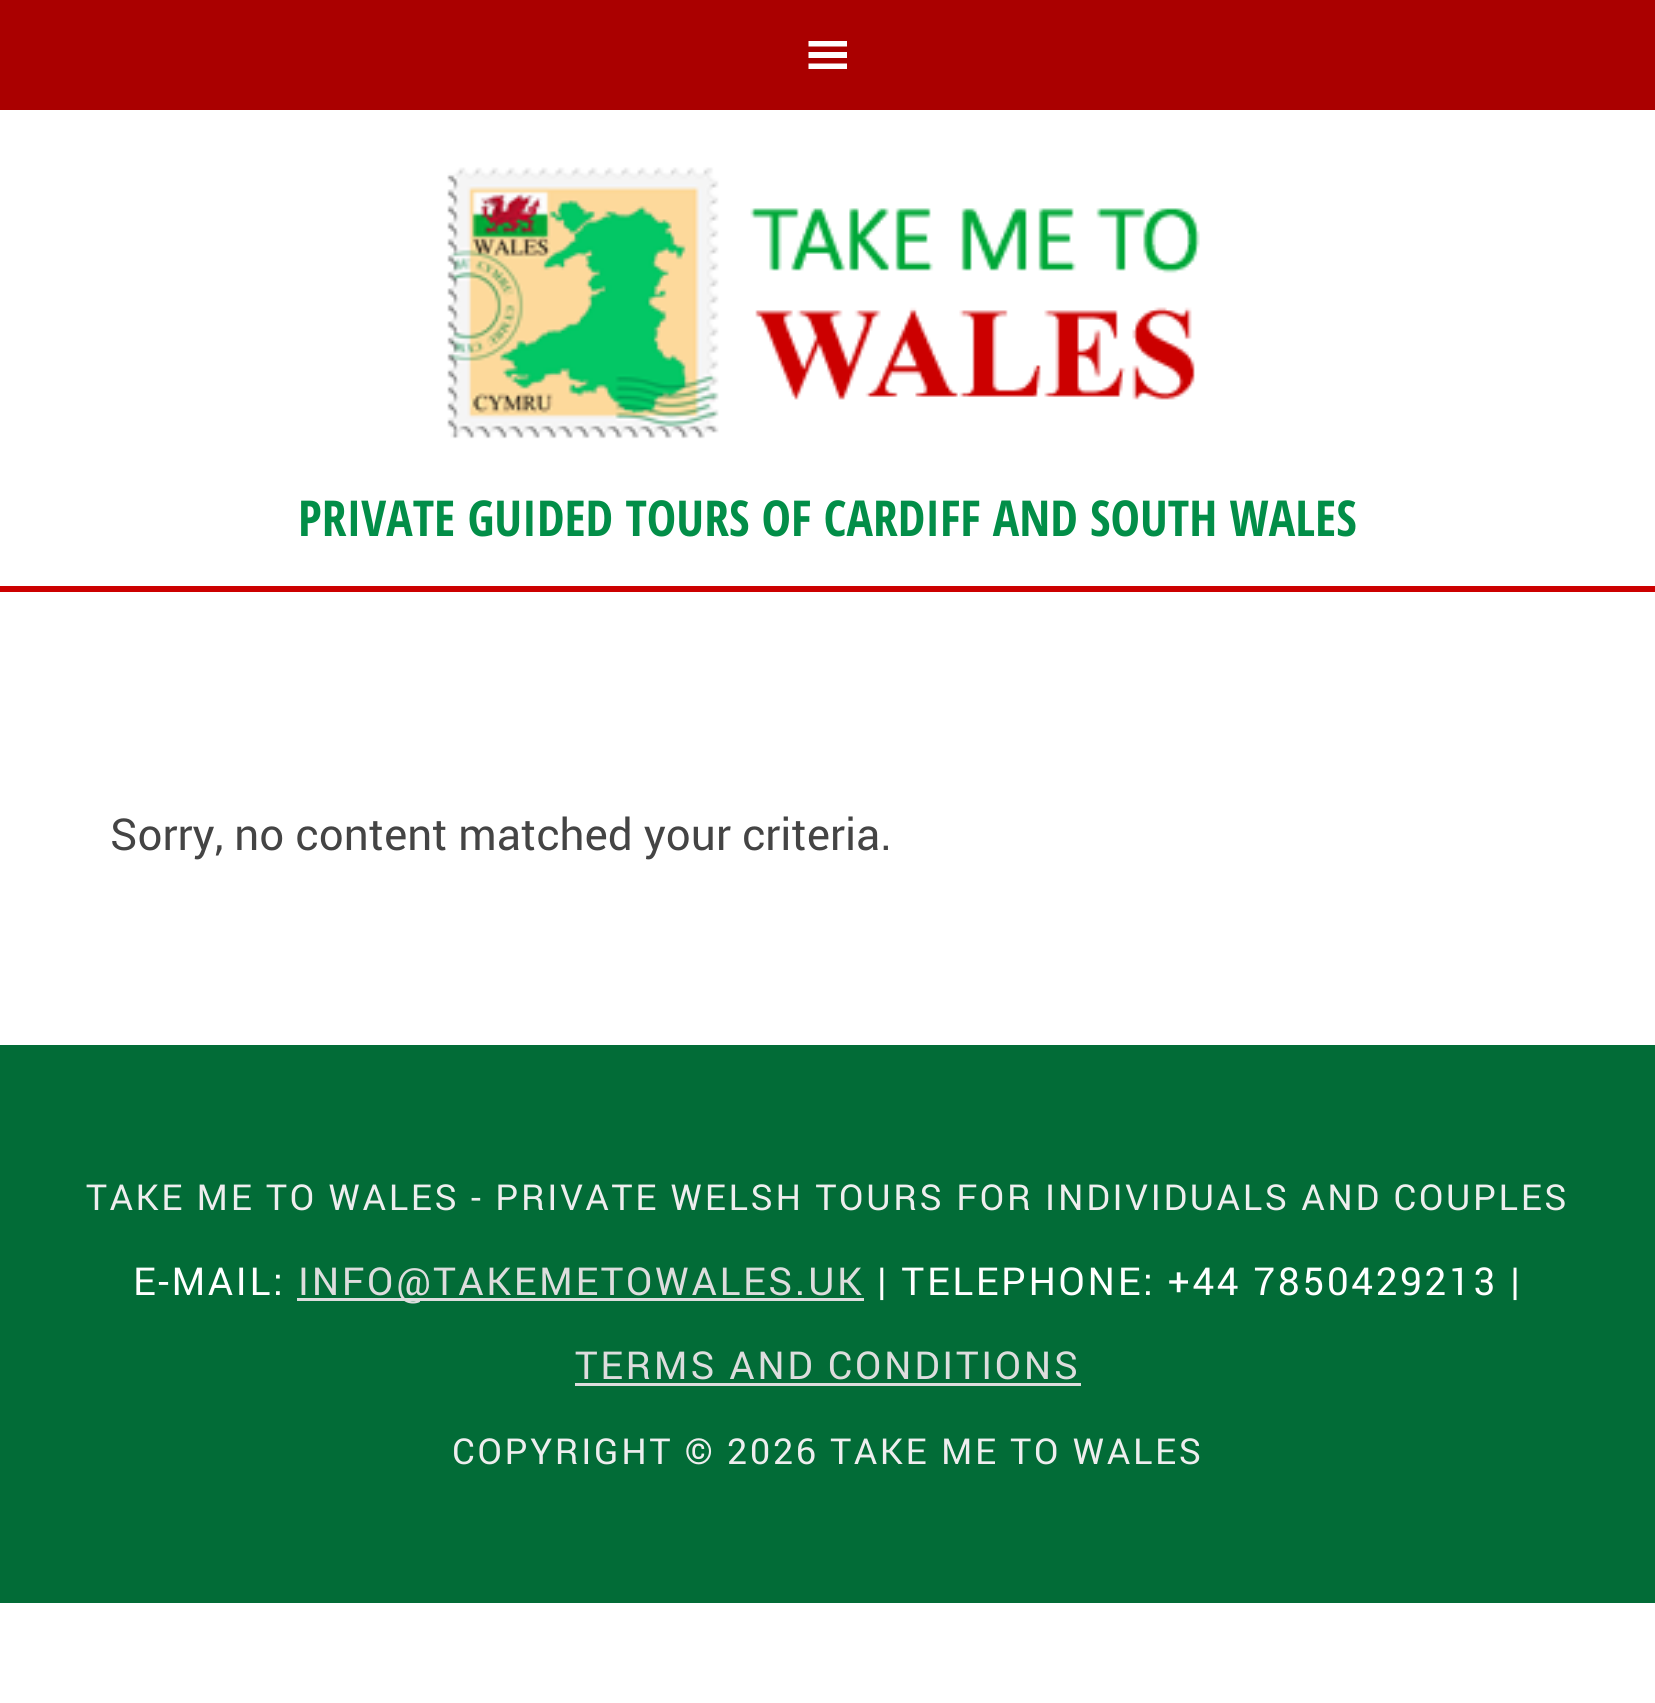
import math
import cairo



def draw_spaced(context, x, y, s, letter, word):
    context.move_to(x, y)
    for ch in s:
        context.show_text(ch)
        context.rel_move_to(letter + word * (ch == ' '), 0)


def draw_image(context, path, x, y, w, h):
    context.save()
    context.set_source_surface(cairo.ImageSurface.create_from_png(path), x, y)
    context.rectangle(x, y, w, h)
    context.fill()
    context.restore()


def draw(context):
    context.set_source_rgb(1, 1, 1)
    context.paint()
    context.set_source_rgb(170 / 255, 0, 0)
    context.rectangle(0, 0, 1655, 110)
    context.fill()
    context.set_source_rgb(1, 1, 1)
    context.new_path()
    context.move_to(808.5, 69)
    context.line_to(847, 69)
    context.line_to(847, 63.5)
    context.line_to(808.5, 63.5)
    context.close_path()
    context.move_to(808.5, 41)
    context.line_to(808.5, 46.5)
    context.line_to(847, 46.5)
    context.line_to(847, 41)
    context.close_path()
    context.move_to(808.5, 58)
    context.line_to(847, 58)
    context.line_to(847, 52)
    context.line_to(808.5, 52)
    context.close_path()
    context.fill()
    context.set_source_rgb(204 / 255, 0, 0)
    context.rectangle(0, 586, 1655, 6)
    context.fill()
    draw_image(context, "images/1.png", 447, 167, 753, 272)
    context.set_source_rgb(2 / 255, 108 / 255, 55 / 255)
    context.rectangle(0, 1045, 1655, 558)
    context.fill()
    context.set_source_rgb(221 / 255, 221 / 255, 221 / 255)
    context.rectangle(297, 1298, 567, 3)
    context.fill()
    context.rectangle(575, 1383, 506, 3)
    context.fill()
    context.select_font_face("Open Sans Condensed", cairo.FontSlant.NORMAL, cairo.FontWeight.BOLD)
    context.set_font_size(49.5)
    context.set_source_rgb(2 / 255, 142 / 255, 72 / 255)
    context.move_to(298, 536)
    context.show_text("PRIVATE GUIDED TOURS OF CARDIFF AND SOUTH WALES")
    context.select_font_face("roboto")
    context.set_font_size(44)
    context.set_source_rgb(68 / 255, 68 / 255, 68 / 255)
    context.move_to(110, 850)
    context.show_text("Sorry, no content matched your criteria.")
    context.set_font_size(35.75)
    context.set_source_rgb(238 / 255, 238 / 255, 238 / 255)
    draw_spaced(context, 86, 1210, "TAKE ME TO WALES - PRIVATE WELSH TOURS FOR INDIVIDUALS AND COUPLES", 2.75, 0)
    context.set_font_size(38.5)
    context.set_source_rgb(1, 1, 1)
    draw_spaced(context, 133, 1295, "E-MAIL:", 2.75, 0)
    context.set_source_rgb(221 / 255, 221 / 255, 221 / 255)
    draw_spaced(context, 298, 1295, "INFO@TAKEMETOWALES.UK", 2.75, 0)
    context.set_source_rgb(1, 1, 1)
    draw_spaced(context, 877, 1295, "| TELEPHONE: +44 7850429213 |", 2.75, 0)
    context.set_source_rgb(221 / 255, 221 / 255, 221 / 255)
    draw_spaced(context, 575, 1379, "TERMS AND CONDITIONS", 2.75, 0)
    context.set_font_size(35.75)
    context.set_source_rgb(238 / 255, 238 / 255, 238 / 255)
    draw_spaced(context, 452, 1464, "COPYRIGHT © 2026 TAKE ME TO WALES", 2.75, 0)


surface = cairo.ImageSurface(cairo.Format.RGB24, 1655, 1703)
context = cairo.Context(surface)
options = cairo.FontOptions()
options.set_hint_metrics(cairo.HintMetrics.OFF)
options.set_hint_style(cairo.HintStyle.NONE)
context.set_font_options(options)
context.set_miter_limit(4)
draw(context)
surface.write_to_png("out.png")
